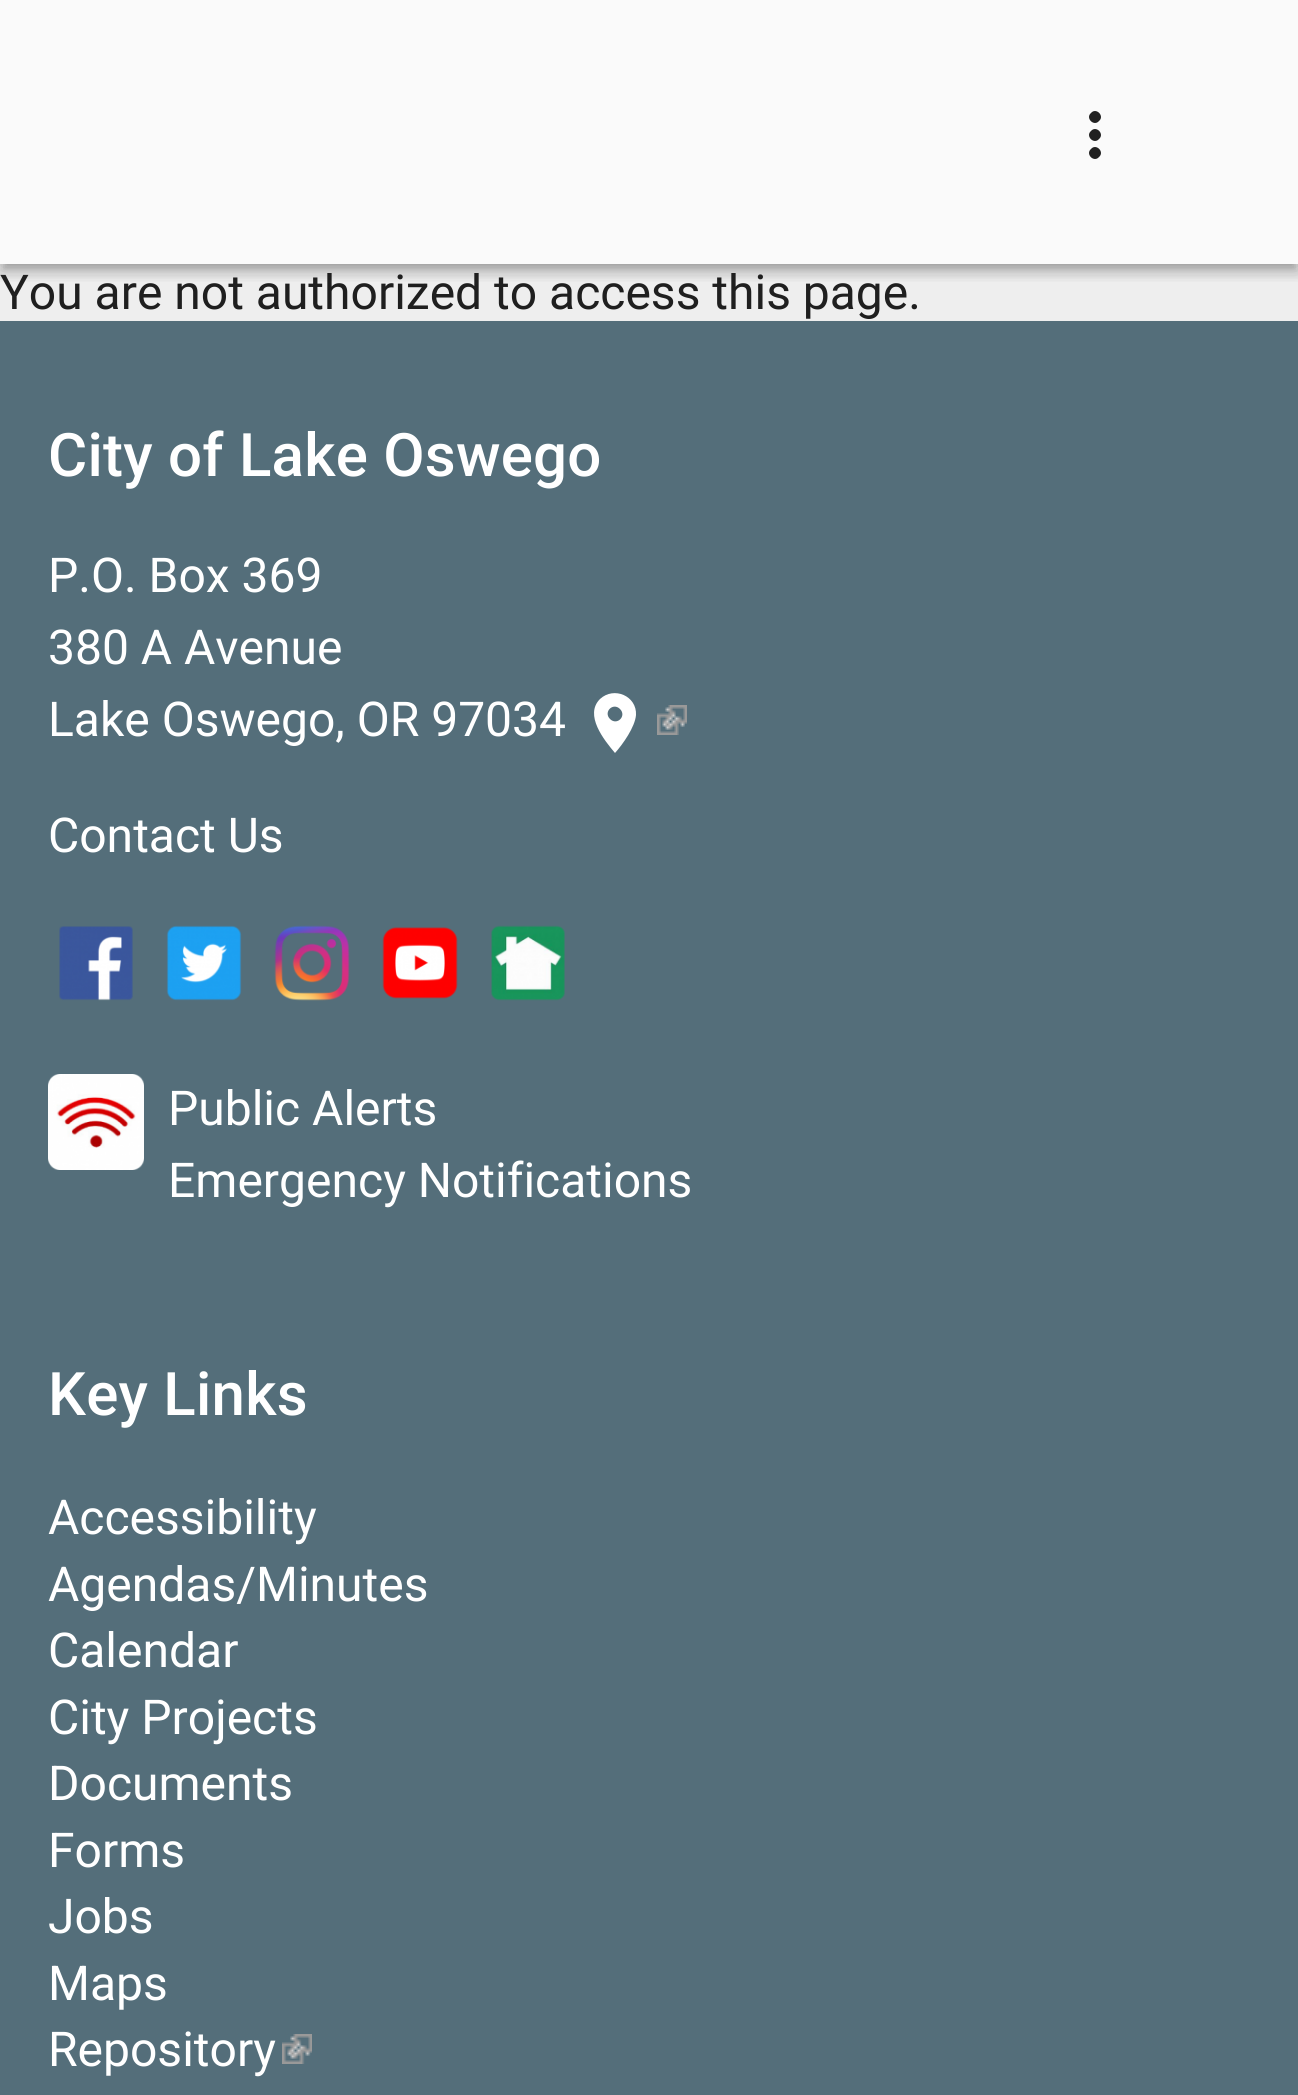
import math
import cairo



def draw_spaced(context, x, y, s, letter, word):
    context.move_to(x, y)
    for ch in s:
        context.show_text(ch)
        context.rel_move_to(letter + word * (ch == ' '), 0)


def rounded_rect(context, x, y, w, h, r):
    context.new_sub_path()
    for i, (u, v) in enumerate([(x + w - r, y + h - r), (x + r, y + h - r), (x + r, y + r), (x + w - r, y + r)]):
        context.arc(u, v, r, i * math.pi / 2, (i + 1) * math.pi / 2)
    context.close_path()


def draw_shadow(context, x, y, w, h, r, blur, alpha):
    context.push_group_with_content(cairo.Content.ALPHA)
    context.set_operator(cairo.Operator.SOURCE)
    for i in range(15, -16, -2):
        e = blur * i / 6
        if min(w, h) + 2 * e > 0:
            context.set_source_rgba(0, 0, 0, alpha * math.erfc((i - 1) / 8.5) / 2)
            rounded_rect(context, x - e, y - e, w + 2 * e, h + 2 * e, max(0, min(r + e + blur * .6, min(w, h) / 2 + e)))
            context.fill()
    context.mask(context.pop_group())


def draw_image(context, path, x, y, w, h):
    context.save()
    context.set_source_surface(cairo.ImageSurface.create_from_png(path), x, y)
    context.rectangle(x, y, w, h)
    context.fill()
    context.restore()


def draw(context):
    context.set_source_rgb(250 / 255, 250 / 255, 250 / 255)
    context.paint()
    context.set_source_rgb(238 / 255, 238 / 255, 238 / 255)
    context.rectangle(0, 264, 1298, 57)
    context.fill()
    context.save()
    context.rectangle(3, 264, 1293, 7)
    context.clip()
    context.set_source_rgb(0, 0, 0)
    draw_shadow(context, 6, 15, 1287, 252, 0, 4.5, 0.12)
    context.restore()
    context.save()
    context.rectangle(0, 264, 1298, 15)
    context.clip()
    context.set_source_rgb(0, 0, 0)
    draw_shadow(context, 0, 9, 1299, 264, 0, 6, 0.14)
    context.restore()
    context.save()
    context.rectangle(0, 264, 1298, 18)
    context.clip()
    context.set_source_rgb(0, 0, 0)
    draw_shadow(context, 0, 3, 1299, 264, 0, 12, 0.2)
    context.restore()
    context.set_source_rgb(33 / 255, 33 / 255, 33 / 255)
    context.new_path()
    context.move_to(1091, 149)
    context.curve_to(1096, 143, 1105, 152, 1099, 157)
    context.curve_to(1094, 163, 1085, 154, 1091, 149)
    context.close_path()
    context.move_to(1091, 131)
    context.curve_to(1096, 125, 1105, 134, 1099, 139)
    context.curve_to(1094, 145, 1085, 136, 1091, 131)
    context.close_path()
    context.move_to(1099, 121)
    context.curve_to(1094, 127, 1085, 118, 1091, 113)
    context.curve_to(1096, 107, 1105, 116, 1099, 121)
    context.close_path()
    context.fill()
    context.set_source_rgb(84 / 255, 110 / 255, 122 / 255)
    context.rectangle(0, 321, 1298, 1774)
    context.fill()
    context.set_source_rgb(1, 1, 1)
    context.new_path()
    context.move_to(610, 719)
    context.curve_to(617, 726, 627, 716, 620, 709)
    context.curve_to(613, 702, 603, 712, 610, 719)
    context.close_path()
    context.move_to(600, 699)
    context.curve_to(614, 686, 637, 696, 636, 715)
    context.curve_to(635, 727, 623, 744, 615, 753)
    context.curve_to(604, 740, 584, 715, 600, 699)
    context.close_path()
    context.fill()
    draw_image(context, "images/1.png", 657, 705, 30, 30)
    draw_image(context, "images/2.png", 59, 926, 74, 75)
    draw_image(context, "images/3.png", 166, 925, 76, 76)
    draw_image(context, "images/4.png", 274, 925, 76, 76)
    draw_image(context, "images/5.png", 382, 927, 76, 72)
    draw_image(context, "images/6.png", 491, 925, 74, 76)
    draw_image(context, "images/7.png", 48, 1074, 96, 96)
    draw_image(context, "images/8.png", 282, 2034, 30, 30)
    context.select_font_face("Roboto")
    context.set_font_size(48)
    context.set_source_rgb(31 / 255, 31 / 255, 31 / 255)
    context.move_to(0, 309)
    context.show_text("You are not authorized to access this page.")
    context.select_font_face("Roboto Medium")
    context.set_font_size(60)
    context.set_source_rgb(1, 1, 1)
    draw_spaced(context, 48, 476, "City of Lake Oswego", 0.25, 0)
    context.select_font_face("Roboto")
    context.set_font_size(48)
    context.move_to(48, 592)
    context.show_text("P.O. Box 369")
    context.move_to(48, 664)
    context.show_text("380 A Avenue")
    context.move_to(48, 736)
    context.show_text("Lake Oswego, OR 97034")
    context.move_to(48, 852)
    context.show_text("Contact Us")
    context.move_to(168, 1125)
    context.show_text("Public Alerts")
    context.move_to(168, 1197)
    context.show_text("Emergency Notifications")
    context.select_font_face("Roboto Medium")
    context.set_font_size(60)
    draw_spaced(context, 48, 1415, "Key Links", 0.25, 0)
    context.select_font_face("Roboto")
    context.set_font_size(48)
    context.move_to(48, 1534)
    context.show_text("Accessibility")
    context.move_to(48, 1601)
    context.show_text("Agendas/Minutes")
    context.move_to(48, 1667)
    context.show_text("Calendar")
    context.move_to(48, 1734)
    context.show_text("City Projects")
    context.move_to(48, 1800)
    context.show_text("Documents")
    context.move_to(48, 1867)
    context.show_text("Forms")
    context.move_to(48, 1933)
    context.show_text("Jobs")
    context.move_to(48, 2000)
    context.show_text("Maps")
    context.move_to(48, 2066)
    context.show_text("Repository")


surface = cairo.ImageSurface(cairo.Format.RGB24, 1298, 2095)
context = cairo.Context(surface)
options = cairo.FontOptions()
options.set_hint_metrics(cairo.HintMetrics.OFF)
options.set_hint_style(cairo.HintStyle.NONE)
context.set_font_options(options)
context.set_miter_limit(4)
draw(context)
surface.write_to_png("out.png")
